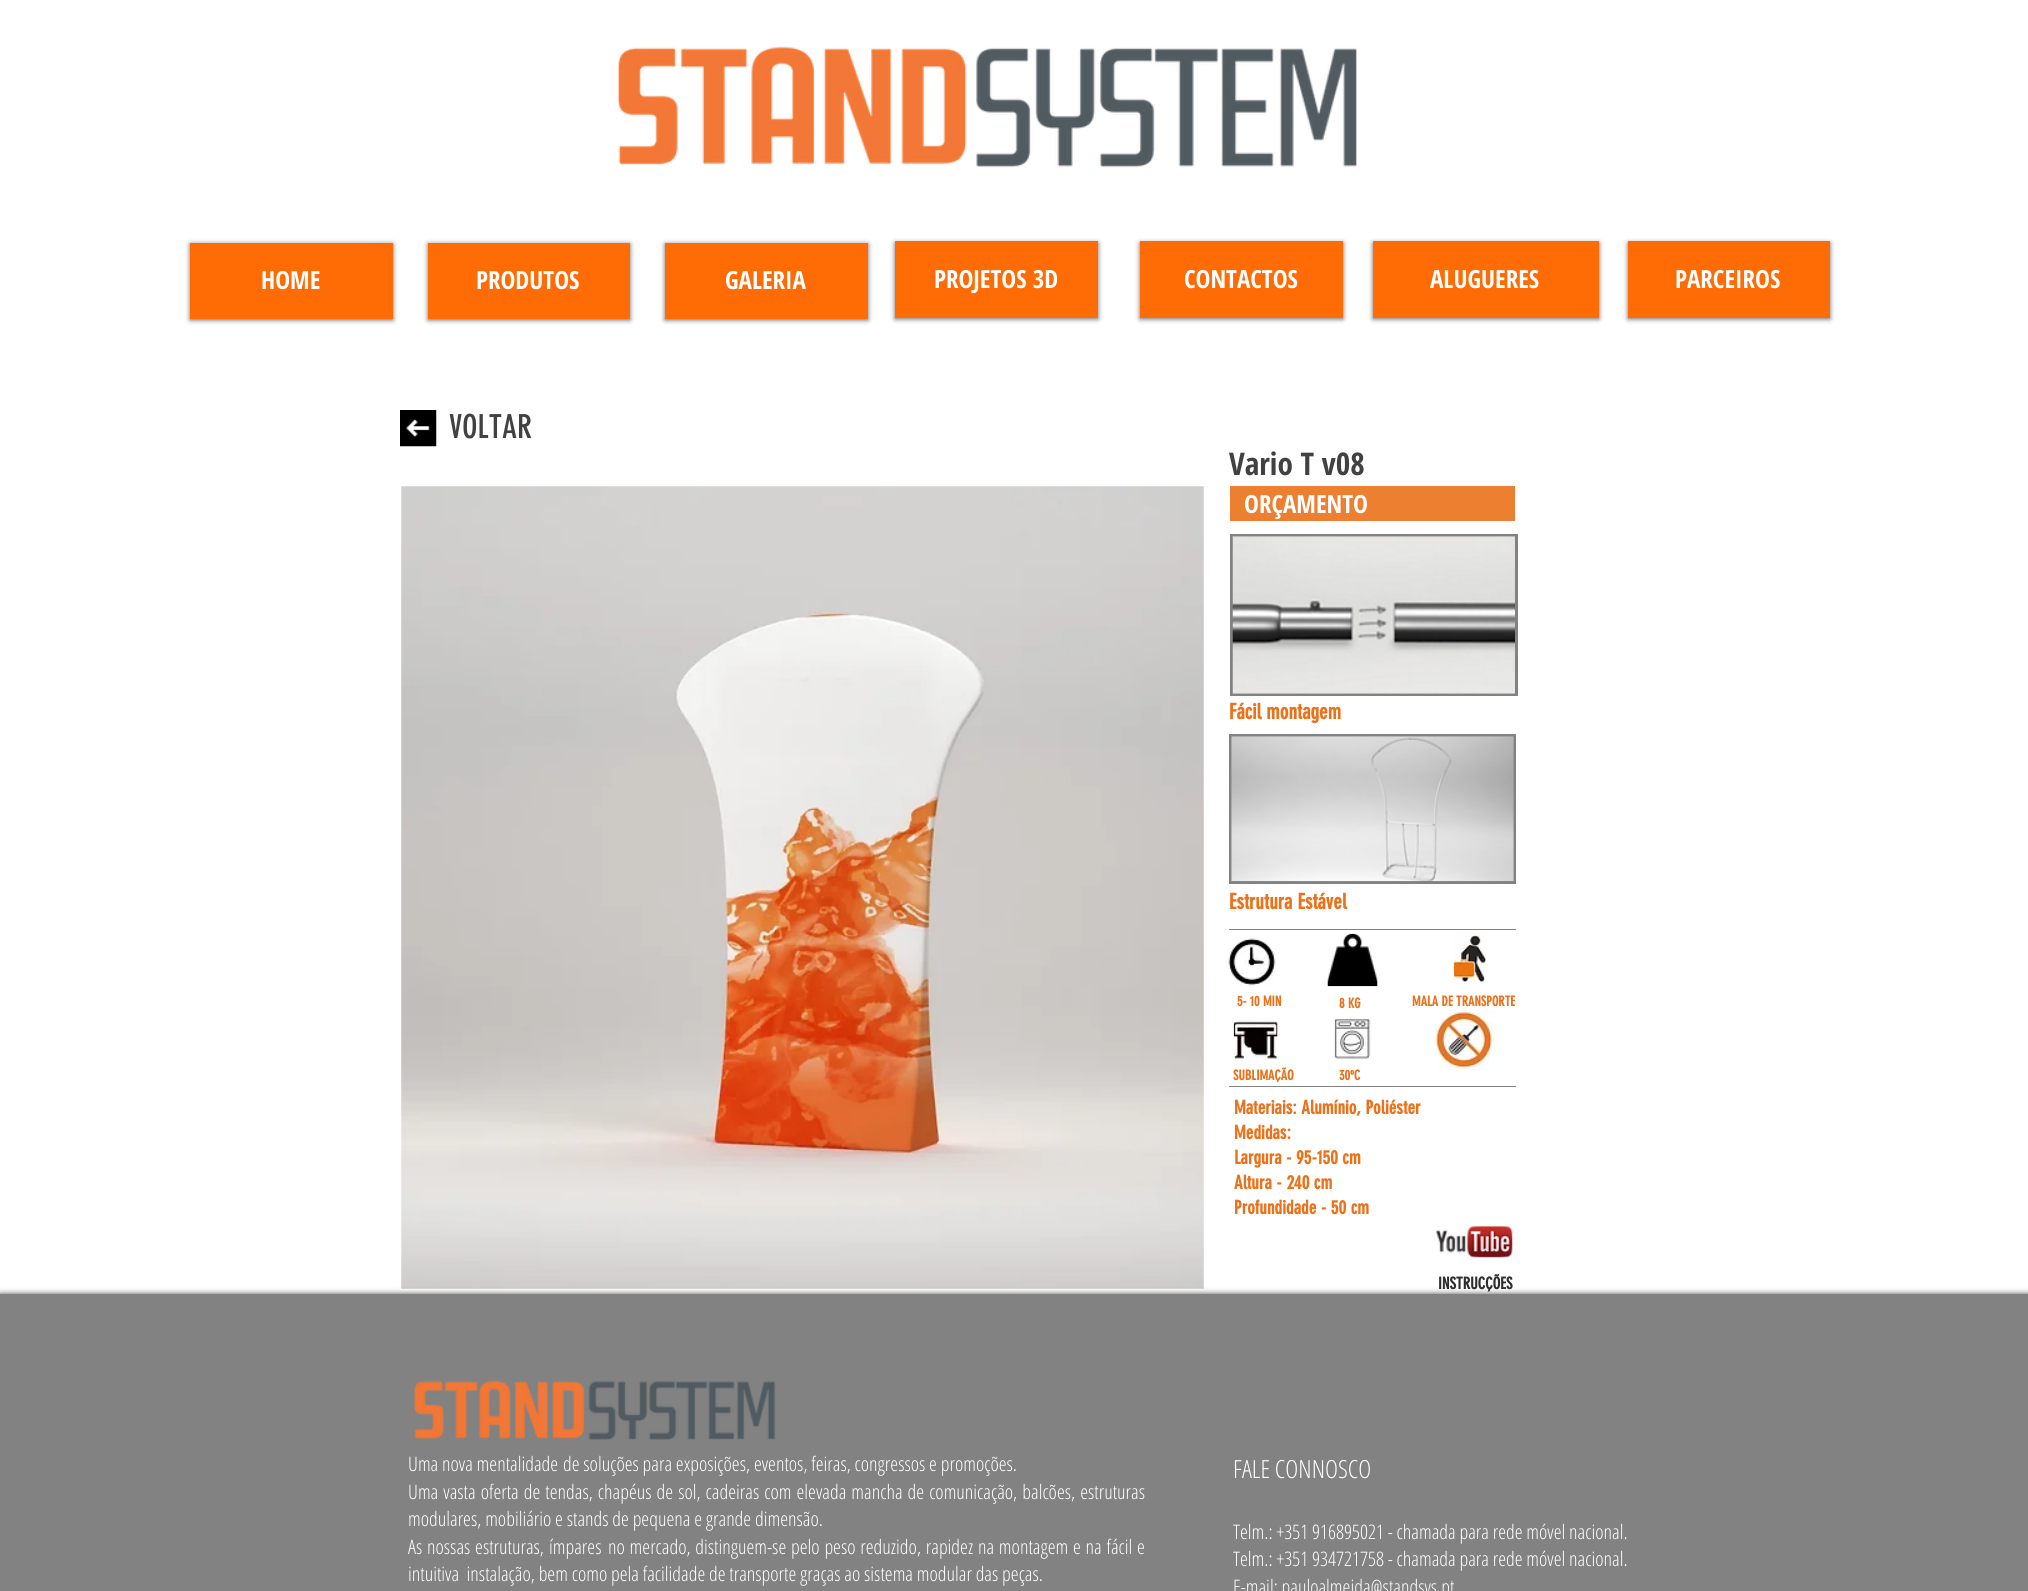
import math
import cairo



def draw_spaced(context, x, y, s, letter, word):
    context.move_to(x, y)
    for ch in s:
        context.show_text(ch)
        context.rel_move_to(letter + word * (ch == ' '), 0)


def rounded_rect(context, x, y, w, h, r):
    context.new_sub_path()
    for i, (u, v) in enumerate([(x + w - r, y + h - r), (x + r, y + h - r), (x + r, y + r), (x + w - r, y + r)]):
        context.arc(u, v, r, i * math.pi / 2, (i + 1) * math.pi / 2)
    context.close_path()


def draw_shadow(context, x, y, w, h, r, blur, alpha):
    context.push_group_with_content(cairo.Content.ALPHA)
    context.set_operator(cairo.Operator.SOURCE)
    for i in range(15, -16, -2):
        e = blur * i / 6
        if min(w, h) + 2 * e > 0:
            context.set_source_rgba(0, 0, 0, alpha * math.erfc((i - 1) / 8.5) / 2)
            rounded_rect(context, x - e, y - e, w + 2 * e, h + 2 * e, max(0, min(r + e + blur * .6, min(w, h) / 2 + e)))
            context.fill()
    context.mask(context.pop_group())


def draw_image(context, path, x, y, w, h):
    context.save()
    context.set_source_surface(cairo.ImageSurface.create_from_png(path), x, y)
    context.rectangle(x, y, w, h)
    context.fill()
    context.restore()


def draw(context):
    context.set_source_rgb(1, 1, 1)
    context.paint()
    draw_image(context, "images/1.png", 617, 46, 740, 122)
    context.set_source_rgb(0, 0, 0)
    draw_shadow(context, 190, 244, 203, 76, 0, 2.5, 0.6)
    context.set_source_rgb(1, 108 / 255, 5 / 255)
    context.rectangle(190, 243, 203, 76)
    context.fill()
    context.set_source_rgb(0, 0, 0)
    draw_shadow(context, 428, 244, 202, 76, 0, 2.5, 0.6)
    context.set_source_rgb(1, 108 / 255, 5 / 255)
    context.rectangle(428, 243, 202, 76)
    context.fill()
    context.set_source_rgb(0, 0, 0)
    draw_shadow(context, 665, 244, 203, 76, 0, 2.5, 0.6)
    context.set_source_rgb(1, 108 / 255, 5 / 255)
    context.rectangle(665, 243, 203, 76)
    context.fill()
    context.set_source_rgb(0, 0, 0)
    draw_shadow(context, 895, 243, 203, 76, 0, 2.5, 0.6)
    context.set_source_rgb(1, 108 / 255, 5 / 255)
    context.rectangle(895, 241, 203, 77)
    context.fill()
    context.set_source_rgb(0, 0, 0)
    draw_shadow(context, 1140, 243, 203, 76, 0, 2.5, 0.6)
    context.set_source_rgb(1, 108 / 255, 5 / 255)
    context.rectangle(1140, 241, 203, 77)
    context.fill()
    context.set_source_rgb(0, 0, 0)
    draw_shadow(context, 1373, 243, 226, 76, 0, 2.5, 0.6)
    context.set_source_rgb(1, 108 / 255, 5 / 255)
    context.rectangle(1373, 241, 226, 77)
    context.fill()
    context.set_source_rgb(0, 0, 0)
    draw_shadow(context, 1628, 243, 202, 76, 0, 2.5, 0.6)
    context.set_source_rgb(1, 108 / 255, 5 / 255)
    context.rectangle(1628, 241, 202, 77)
    context.fill()
    draw_image(context, "images/2.png", 400, 410, 37, 37)
    draw_image(context, "images/3.png", 401, 486, 803, 803)
    context.set_source_rgb(237 / 255, 127 / 255, 49 / 255)
    context.rectangle(1230, 486, 285, 35)
    context.fill()
    context.set_source_rgb(130 / 255, 130 / 255, 130 / 255)
    context.rectangle(1230, 534, 288, 162)
    context.fill()
    draw_image(context, "images/4.png", 1232, 536, 283, 158)
    context.rectangle(1229, 734, 287, 150)
    context.fill()
    draw_image(context, "images/5.png", 1231, 736, 283, 146)
    context.rectangle(1229, 929, 287, 1)
    context.fill()
    draw_image(context, "images/6.png", 1225, 937, 51, 50)
    draw_image(context, "images/7.png", 1327, 933, 51, 54)
    draw_image(context, "images/8.png", 1453, 935, 33, 47)
    draw_image(context, "images/9.png", 1233, 1019, 45, 44)
    draw_image(context, "images/10.png", 1334, 1018, 37, 41)
    draw_image(context, "images/11.png", 1435, 1010, 60, 60)
    context.rectangle(1229, 1086, 287, 1)
    context.fill()
    draw_image(context, "images/12.png", 1436, 1226, 77, 32)
    context.set_source_rgb(0, 0, 0)
    draw_shadow(context, 0, 1294, 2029, 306, 0, 3, 0.7)
    context.set_source_rgb(130 / 255, 130 / 255, 130 / 255)
    context.rectangle(0, 1294, 2028, 297)
    context.fill()
    draw_image(context, "images/13.png", 413, 1380, 363, 60)
    context.select_font_face("Open Sans Condensed", cairo.FontSlant.NORMAL, cairo.FontWeight.BOLD)
    context.set_font_size(25)
    context.set_source_rgb(1, 1, 1)
    context.move_to(261, 289)
    context.show_text("HOME")
    context.move_to(476, 289)
    context.show_text("PRODUTOS")
    context.move_to(725, 289)
    context.show_text("GALERIA")
    context.move_to(934, 288)
    context.show_text("PROJETOS 3D")
    context.move_to(1184, 288)
    context.show_text("CONTACTOS")
    context.move_to(1430, 288)
    context.show_text("ALUGUERES")
    context.move_to(1675, 288)
    context.show_text("PARCEIROS")
    context.select_font_face("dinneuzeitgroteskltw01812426")
    context.set_font_size(32.5)
    context.set_source_rgb(65 / 255, 65 / 255, 65 / 255)
    context.move_to(449, 438)
    context.show_text("VOLTAR")
    context.select_font_face("Open Sans Condensed", cairo.FontSlant.NORMAL, cairo.FontWeight.BOLD)
    context.set_font_size(31.25)
    context.move_to(1229, 475)
    context.show_text("Vario T v08")
    context.set_font_size(25)
    context.set_source_rgb(1, 1, 1)
    context.move_to(1244, 513)
    context.show_text("ORÇAMENTO")
    context.select_font_face("dinneuzeitgroteskltw01812426", cairo.FontSlant.NORMAL, cairo.FontWeight.BOLD)
    context.set_font_size(21.25)
    context.set_source_rgb(235 / 255, 113 / 255, 26 / 255)
    context.move_to(1229, 719)
    context.show_text("Fácil montagem")
    context.move_to(1229, 909)
    context.show_text("Estrutura Estável")
    context.set_font_size(13.75)
    context.move_to(1237, 1006)
    context.show_text("5- 10 MIN")
    context.move_to(1339, 1008)
    context.show_text("8 KG")
    context.move_to(1412, 1006)
    context.show_text("MALA DE TRANSPORTE")
    context.move_to(1233, 1080)
    context.show_text("SUBLIMAÇÃO")
    context.move_to(1339, 1080)
    context.show_text("30ºC")
    context.set_font_size(18.75)
    context.move_to(1234, 1114)
    context.show_text("Materiais: Alumínio, Poliéster")
    context.move_to(1234, 1139)
    context.show_text("Medidas:")
    context.move_to(1234, 1164)
    context.show_text("Largura - 95-150 cm")
    context.move_to(1234, 1189)
    context.show_text("Altura - 240 cm")
    context.move_to(1234, 1214)
    context.show_text("Profundidade - 50 cm")
    context.set_font_size(16.25)
    context.set_source_rgb(47 / 255, 46 / 255, 46 / 255)
    context.move_to(1438, 1289)
    context.show_text("INSTRUCÇÕES")
    context.select_font_face("Open Sans Condensed Light")
    context.set_font_size(20)
    context.set_source_rgb(1, 1, 1)
    context.move_to(408, 1471)
    context.show_text("Uma nova mentalidade")
    context.move_to(563, 1471)
    context.show_text("de soluções para exposições, eventos, feiras, congressos e promoções.")
    draw_spaced(context, 408, 1499, "Uma vasta oferta de tendas, chapéus de sol, cadeiras com elevada mancha de comunicação, balcões, estruturas", 0, 1.25)
    context.move_to(408, 1526)
    context.show_text("modulares, mobiliário e stands de pequena e grande dimensão.")
    draw_spaced(context, 408, 1554, "As nossas estruturas,", 0, 1)
    context.move_to(549, 1554)
    context.show_text("ímpares")
    draw_spaced(context, 608, 1554, "no mercado, distinguem-se pelo peso reduzido, rapidez na montagem e na fácil e", 0, 1)
    context.move_to(408, 1581)
    context.show_text("intuitiva  instalação, bem como pela facilidade de transporte graças ao sistema modular das peças.")
    context.set_font_size(25)
    context.move_to(1233, 1478)
    context.show_text("FALE CONNOSCO")
    context.set_font_size(20)
    context.move_to(1233, 1539)
    context.show_text("Telm.: +351 916895021 - chamada para rede móvel nacional.")
    context.move_to(1233, 1566)
    context.show_text("Telm.: +351 934721758 - chamada para rede móvel nacional.")
    context.move_to(1233, 1594)
    context.show_text("E-mail: pauloalmeida@standsys.pt")


surface = cairo.ImageSurface(cairo.Format.RGB24, 2028, 1591)
context = cairo.Context(surface)
options = cairo.FontOptions()
options.set_hint_metrics(cairo.HintMetrics.OFF)
options.set_hint_style(cairo.HintStyle.NONE)
context.set_font_options(options)
context.set_miter_limit(4)
draw(context)
surface.write_to_png("out.png")
